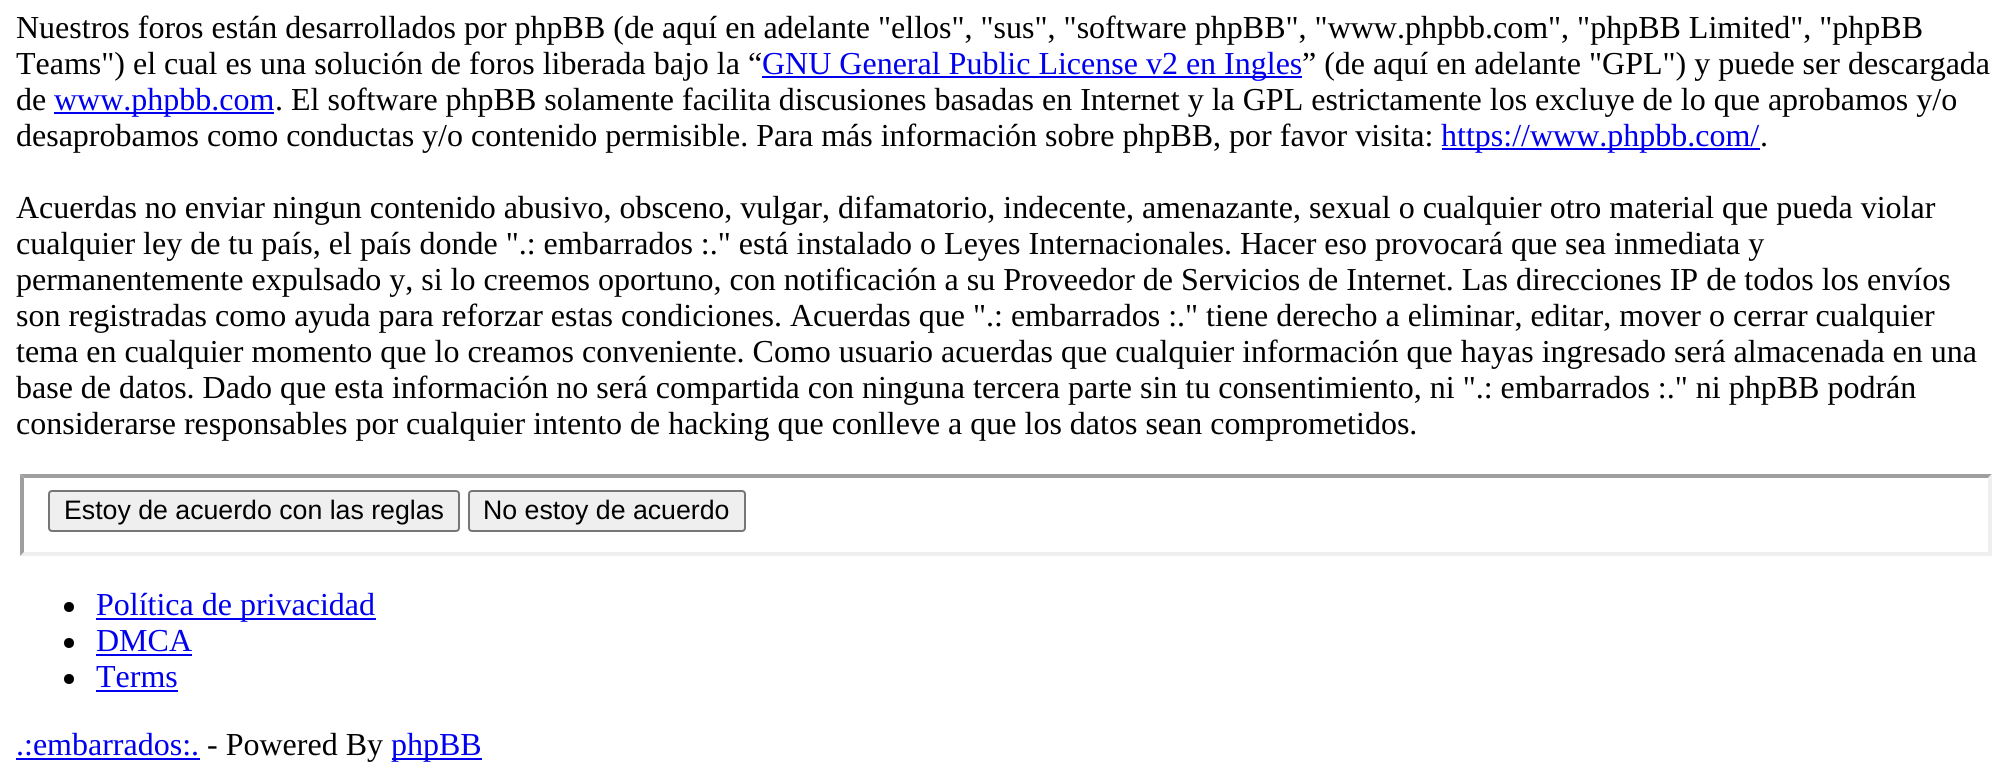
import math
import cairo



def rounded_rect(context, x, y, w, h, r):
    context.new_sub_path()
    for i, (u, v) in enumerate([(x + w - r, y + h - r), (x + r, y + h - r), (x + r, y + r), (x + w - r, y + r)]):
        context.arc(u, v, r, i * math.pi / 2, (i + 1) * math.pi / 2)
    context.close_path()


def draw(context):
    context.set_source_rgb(1, 1, 1)
    context.paint()
    context.set_source_rgb(0, 0, 238 / 255)
    context.rectangle(762, 76, 540, 2)
    context.fill()
    context.rectangle(54, 112, 220, 2)
    context.fill()
    context.rectangle(1442, 148, 318, 2)
    context.fill()
    context.set_source_rgb(159 / 255, 159 / 255, 159 / 255)
    context.new_path()
    context.move_to(20, 474)
    context.line_to(1992, 474)
    context.line_to(1988, 478)
    context.line_to(24, 478)
    context.close_path()
    context.fill()
    context.set_source_rgb(239 / 255, 239 / 255, 239 / 255)
    context.new_path()
    context.move_to(1992, 474)
    context.line_to(1992, 556)
    context.line_to(1988, 552)
    context.line_to(1988, 478)
    context.close_path()
    context.fill()
    context.new_path()
    context.move_to(1992, 556)
    context.line_to(20, 556)
    context.line_to(24, 552)
    context.line_to(1988, 552)
    context.close_path()
    context.fill()
    context.set_source_rgb(159 / 255, 159 / 255, 159 / 255)
    context.new_path()
    context.move_to(20, 556)
    context.line_to(20, 474)
    context.line_to(24, 478)
    context.line_to(24, 552)
    context.close_path()
    context.fill()
    context.set_source_rgb(239 / 255, 239 / 255, 239 / 255)
    rounded_rect(context, 49, 491, 410, 40, 3)
    context.fill_preserve()
    context.set_source_rgb(118 / 255, 118 / 255, 118 / 255)
    context.stroke()
    context.set_source_rgb(239 / 255, 239 / 255, 239 / 255)
    rounded_rect(context, 469, 491, 276, 40, 3)
    context.fill_preserve()
    context.set_source_rgb(118 / 255, 118 / 255, 118 / 255)
    context.stroke()
    context.set_source_rgb(0, 0, 0)
    context.arc(69, 607, 5, 0, 2 * math.pi)
    context.fill()
    context.set_source_rgb(0, 0, 238 / 255)
    context.rectangle(96, 618, 280, 2)
    context.fill()
    context.set_source_rgb(0, 0, 0)
    context.arc(69, 643, 5, 0, 2 * math.pi)
    context.fill()
    context.set_source_rgb(0, 0, 238 / 255)
    context.rectangle(96, 654, 96, 2)
    context.fill()
    context.set_source_rgb(0, 0, 0)
    context.arc(69, 679, 5, 0, 2 * math.pi)
    context.fill()
    context.set_source_rgb(0, 0, 238 / 255)
    context.rectangle(96, 690, 82, 2)
    context.fill()
    context.rectangle(16, 758, 184, 2)
    context.fill()
    context.rectangle(392, 758, 90, 2)
    context.fill()
    context.select_font_face("Liberation Serif")
    context.set_font_size(32)
    context.set_source_rgb(0, 0, 0)
    context.move_to(16, 38)
    context.show_text("Nuestros foros están desarrollados por phpBB (de aquí en adelante \"ellos\", \"sus\", \"software phpBB\", \"www.phpbb.com\", \"phpBB Limited\", \"phpBB")
    context.move_to(16, 74)
    context.show_text("Teams\") el cual es una solución de foros liberada bajo la “")
    context.set_source_rgb(0, 0, 238 / 255)
    context.move_to(762, 74)
    context.show_text("GNU General Public License v2 en Ingles")
    context.set_source_rgb(0, 0, 0)
    context.move_to(1302, 74)
    context.show_text("” (de aquí en adelante \"GPL\") y puede ser descargada")
    context.move_to(16, 110)
    context.show_text("de")
    context.set_source_rgb(0, 0, 238 / 255)
    context.move_to(54, 110)
    context.show_text("www.phpbb.com")
    context.set_source_rgb(0, 0, 0)
    context.move_to(275, 110)
    context.show_text(". El software phpBB solamente facilita discusiones basadas en Internet y la GPL estrictamente los excluye de lo que aprobamos y/o")
    context.move_to(16, 146)
    context.show_text("desaprobamos como conductas y/o contenido permisible. Para más información sobre phpBB, por favor visita:")
    context.set_source_rgb(0, 0, 238 / 255)
    context.move_to(1441, 146)
    context.show_text("https://www.phpbb.com/")
    context.set_source_rgb(0, 0, 0)
    context.move_to(1760, 146)
    context.show_text(".")
    context.move_to(16, 218)
    context.show_text("Acuerdas no enviar ningun contenido abusivo, obsceno, vulgar, difamatorio, indecente, amenazante, sexual o cualquier otro material que pueda violar")
    context.move_to(16, 254)
    context.show_text("cualquier ley de tu país, el país donde \".: embarrados :.\" está instalado o Leyes Internacionales. Hacer eso provocará que sea inmediata y")
    context.move_to(16, 290)
    context.show_text("permanentemente expulsado y, si lo creemos oportuno, con notificación a su Proveedor de Servicios de Internet. Las direcciones IP de todos los envíos")
    context.move_to(16, 326)
    context.show_text("son registradas como ayuda para reforzar estas condiciones. Acuerdas que \".: embarrados :.\" tiene derecho a eliminar, editar, mover o cerrar cualquier")
    context.move_to(16, 362)
    context.show_text("tema en cualquier momento que lo creamos conveniente. Como usuario acuerdas que cualquier información que hayas ingresado será almacenada en una")
    context.move_to(16, 398)
    context.show_text("base de datos. Dado que esta información no será compartida con ninguna tercera parte sin tu consentimiento, ni \".: embarrados :.\" ni phpBB podrán")
    context.move_to(16, 434)
    context.show_text("considerarse responsables por cualquier intento de hacking que conlleve a que los datos sean comprometidos.")
    context.select_font_face("Liberation Sans")
    context.set_font_size(26.7)
    context.move_to(64, 519)
    context.show_text("Estoy de acuerdo con las reglas")
    context.move_to(483, 519)
    context.show_text("No estoy de acuerdo")
    context.select_font_face("Liberation Serif")
    context.set_font_size(32)
    context.set_source_rgb(0, 0, 238 / 255)
    context.move_to(96, 615)
    context.show_text("Política de privacidad")
    context.move_to(96, 651)
    context.show_text("DMCA")
    context.move_to(96, 687)
    context.show_text("Terms")
    context.move_to(16, 755)
    context.show_text(".:embarrados:.")
    context.set_source_rgb(0, 0, 0)
    context.move_to(207, 755)
    context.show_text("- Powered By")
    context.set_source_rgb(0, 0, 238 / 255)
    context.move_to(391, 755)
    context.show_text("phpBB")


surface = cairo.ImageSurface(cairo.Format.RGB24, 2012, 782)
context = cairo.Context(surface)
options = cairo.FontOptions()
options.set_hint_metrics(cairo.HintMetrics.OFF)
options.set_hint_style(cairo.HintStyle.NONE)
context.set_font_options(options)
context.set_miter_limit(4)
draw(context)
surface.write_to_png("out.png")
